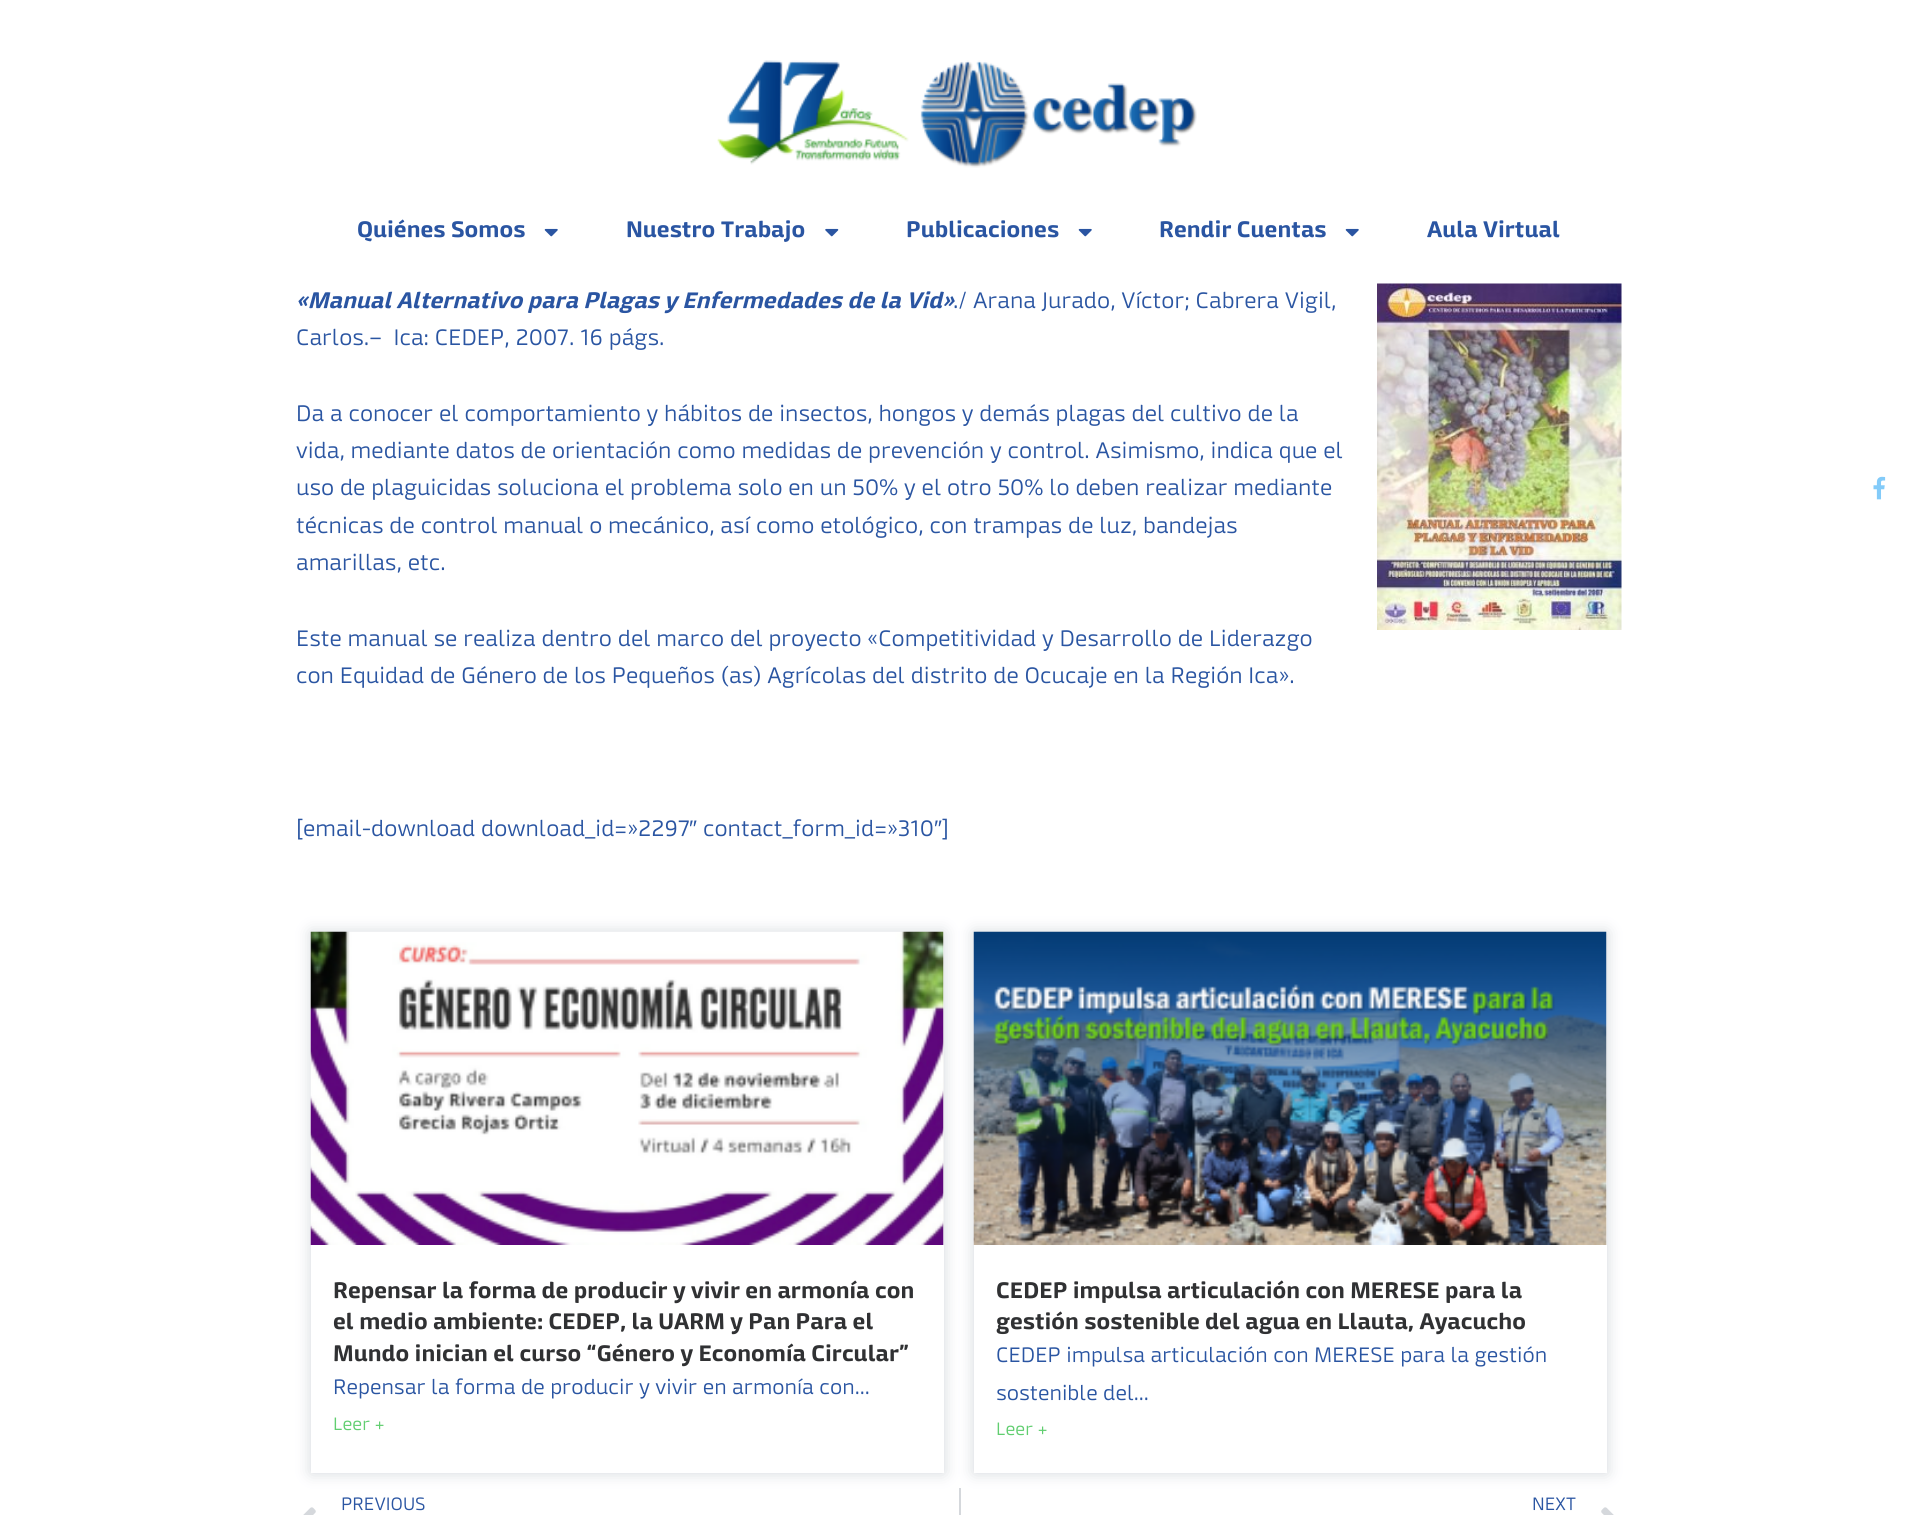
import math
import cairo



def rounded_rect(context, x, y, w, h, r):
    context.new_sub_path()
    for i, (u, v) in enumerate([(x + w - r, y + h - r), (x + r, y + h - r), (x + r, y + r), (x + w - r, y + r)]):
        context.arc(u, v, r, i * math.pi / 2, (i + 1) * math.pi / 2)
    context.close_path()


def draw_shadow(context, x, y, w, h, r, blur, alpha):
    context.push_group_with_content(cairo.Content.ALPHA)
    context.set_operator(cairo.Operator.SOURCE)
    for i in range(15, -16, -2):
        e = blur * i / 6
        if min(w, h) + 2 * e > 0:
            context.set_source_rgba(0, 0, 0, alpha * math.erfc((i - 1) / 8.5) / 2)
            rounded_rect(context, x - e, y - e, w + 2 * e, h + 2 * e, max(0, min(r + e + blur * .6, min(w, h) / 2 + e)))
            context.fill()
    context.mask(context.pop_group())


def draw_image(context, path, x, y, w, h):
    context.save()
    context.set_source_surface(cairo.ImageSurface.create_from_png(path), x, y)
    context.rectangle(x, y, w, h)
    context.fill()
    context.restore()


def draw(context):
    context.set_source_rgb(1, 1, 1)
    context.paint()
    draw_image(context, "images/1.png", 717, 60, 480, 108)
    draw_image(context, "images/2.png", 544, 228, 14, 9)
    draw_image(context, "images/3.png", 825, 228, 14, 9)
    draw_image(context, "images/2.png", 1078, 228, 14, 9)
    draw_image(context, "images/2.png", 1345, 228, 14, 9)
    draw_image(context, "images/4.png", 1377, 283, 245, 347)
    context.set_source_rgb(110 / 255, 123 / 255, 140 / 255)
    draw_shadow(context, 311, 932, 633, 541, 0, 7.5, 0.3)
    context.set_source_rgb(1, 1, 1)
    context.rectangle(311, 1245, 633, 228)
    context.fill()
    context.set_source_rgb(240 / 255, 240 / 255, 240 / 255)
    context.rectangle(943, 932, 1, 313)
    context.fill()
    draw_image(context, "images/5.png", 310, 931, 634, 314)
    context.set_source_rgb(110 / 255, 123 / 255, 140 / 255)
    draw_shadow(context, 974, 932, 633, 541, 0, 7.5, 0.3)
    context.set_source_rgb(1, 1, 1)
    context.rectangle(974, 1245, 633, 228)
    context.fill()
    context.set_source_rgb(240 / 255, 240 / 255, 240 / 255)
    context.rectangle(1606, 932, 1, 313)
    context.fill()
    draw_image(context, "images/6.png", 973, 931, 634, 314)
    draw_image(context, "images/7.png", 303, 1507, 13, 8)
    context.set_source_rgb(213 / 255, 216 / 255, 220 / 255)
    context.rectangle(959, 1488, 2, 27)
    context.fill()
    draw_image(context, "images/8.png", 1601, 1507, 13, 8)
    draw_image(context, "images/9.png", 1873, 476, 13, 24)
    context.select_font_face("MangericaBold", cairo.FontSlant.NORMAL, cairo.FontWeight.BOLD)
    context.set_font_size(22.5)
    context.set_source_rgb(42 / 255, 85 / 255, 162 / 255)
    context.move_to(357, 237)
    context.show_text("Quiénes Somos")
    context.move_to(626, 237)
    context.show_text("Nuestro Trabajo")
    context.move_to(906, 237)
    context.show_text("Publicaciones")
    context.move_to(1159, 237)
    context.show_text("Rendir Cuentas")
    context.move_to(1427, 237)
    context.show_text("Aula Virtual")
    context.select_font_face("MangericaBold", cairo.FontSlant.ITALIC, cairo.FontWeight.BOLD)
    context.move_to(296, 308)
    context.show_text("«Manual Alternativo para Plagas y Enfermedades de la Vid»")
    context.select_font_face("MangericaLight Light")
    context.move_to(953, 308)
    context.show_text("./ Arana Jurado, Víctor; Cabrera Vigil,")
    context.move_to(296, 345)
    context.show_text("Carlos.–  Ica: CEDEP, 2007. 16 págs.")
    context.move_to(296, 421)
    context.show_text("Da a conocer el comportamiento y hábitos de insectos, hongos y demás plagas del cultivo de la")
    context.move_to(296, 458)
    context.show_text("vida, mediante datos de orientación como medidas de prevención y control. Asimismo, indica que el")
    context.move_to(296, 495)
    context.show_text("uso de plaguicidas soluciona el problema solo en un 50% y el otro 50% lo deben realizar mediante")
    context.move_to(296, 533)
    context.show_text("técnicas de control manual o mecánico, así como etológico, con trampas de luz, bandejas")
    context.move_to(296, 570)
    context.show_text("amarillas, etc.")
    context.move_to(296, 646)
    context.show_text("Este manual se realiza dentro del marco del proyecto «Competitividad y Desarrollo de Liderazgo")
    context.move_to(296, 683)
    context.show_text("con Equidad de Género de los Pequeños (as) Agrícolas del distrito de Ocucaje en la Región Ica».")
    context.move_to(296, 836)
    context.show_text("[email-download download_id=»2297")
    context.select_font_face("Liberation Sans")
    context.move_to(689, 836)
    context.show_text("″")
    context.select_font_face("MangericaLight Light")
    context.move_to(703, 836)
    context.show_text("contact_form_id=»310")
    context.select_font_face("Liberation Sans")
    context.move_to(934, 836)
    context.show_text("″")
    context.select_font_face("MangericaLight Light")
    context.move_to(942, 836)
    context.show_text("]")
    context.select_font_face("MangericaBold", cairo.FontSlant.NORMAL, cairo.FontWeight.BOLD)
    context.set_source_rgb(48 / 255, 49 / 255, 51 / 255)
    context.move_to(333, 1298)
    context.show_text("Repensar la forma de producir y vivir en armonía con")
    context.move_to(333, 1329)
    context.show_text("el medio ambiente: CEDEP, la UARM y Pan Para el")
    context.move_to(333, 1361)
    context.show_text("Mundo inician el curso “Género y Economía Circular”")
    context.select_font_face("MangericaLight Light")
    context.set_font_size(21)
    context.set_source_rgb(42 / 255, 85 / 255, 162 / 255)
    context.move_to(333, 1394)
    context.show_text("Repensar la forma de producir y vivir en armonía con...")
    context.set_font_size(18)
    context.set_source_rgb(97 / 255, 206 / 255, 112 / 255)
    context.move_to(333, 1430)
    context.show_text("Leer +")
    context.select_font_face("MangericaBold", cairo.FontSlant.NORMAL, cairo.FontWeight.BOLD)
    context.set_font_size(22.5)
    context.set_source_rgb(48 / 255, 49 / 255, 51 / 255)
    context.move_to(996, 1298)
    context.show_text("CEDEP impulsa articulación con MERESE para la")
    context.move_to(996, 1329)
    context.show_text("gestión sostenible del agua en Llauta, Ayacucho")
    context.select_font_face("MangericaLight Light")
    context.set_font_size(21)
    context.set_source_rgb(42 / 255, 85 / 255, 162 / 255)
    context.move_to(996, 1362)
    context.show_text("CEDEP impulsa articulación con MERESE para la gestión")
    context.move_to(996, 1400)
    context.show_text("sostenible del...")
    context.set_font_size(18)
    context.set_source_rgb(97 / 255, 206 / 255, 112 / 255)
    context.move_to(996, 1435)
    context.show_text("Leer +")
    context.set_source_rgb(42 / 255, 85 / 255, 162 / 255)
    context.move_to(341, 1510)
    context.show_text("PREVIOUS")
    context.move_to(1532, 1510)
    context.show_text("NEXT")


surface = cairo.ImageSurface(cairo.Format.RGB24, 1916, 1515)
context = cairo.Context(surface)
options = cairo.FontOptions()
options.set_hint_metrics(cairo.HintMetrics.OFF)
options.set_hint_style(cairo.HintStyle.NONE)
context.set_font_options(options)
context.set_miter_limit(4)
draw(context)
surface.write_to_png("out.png")
